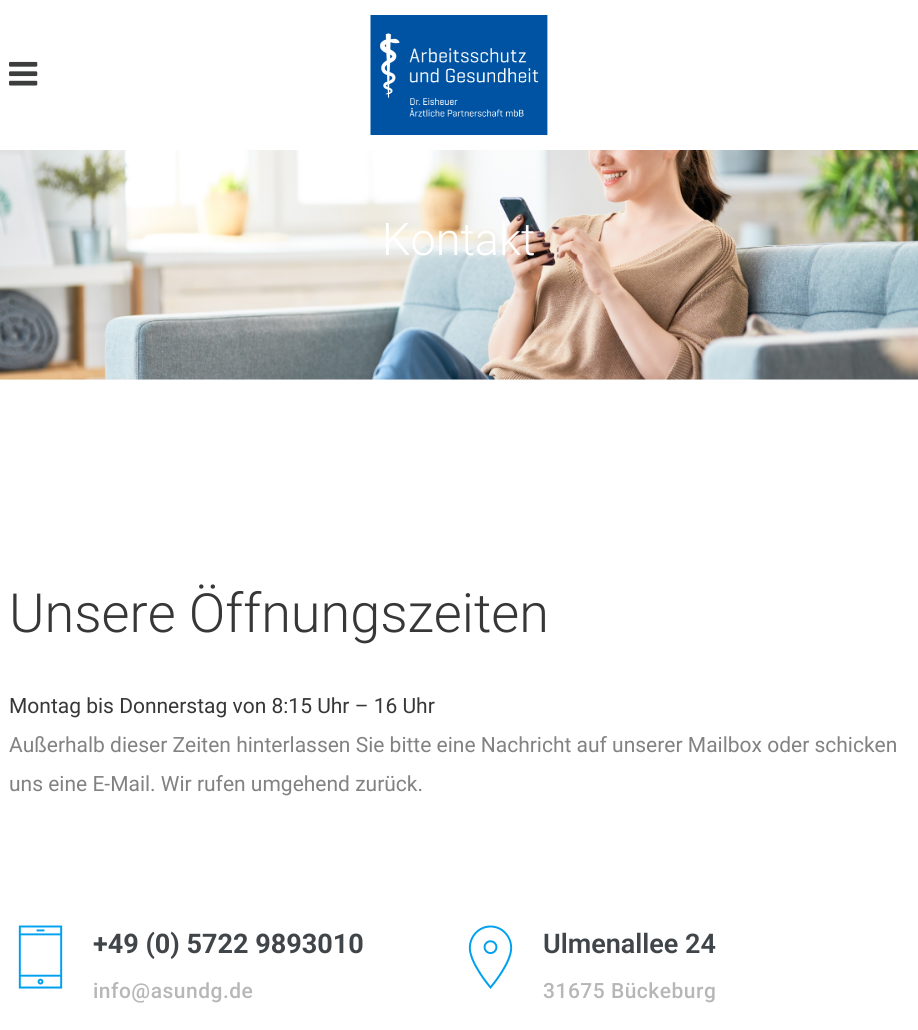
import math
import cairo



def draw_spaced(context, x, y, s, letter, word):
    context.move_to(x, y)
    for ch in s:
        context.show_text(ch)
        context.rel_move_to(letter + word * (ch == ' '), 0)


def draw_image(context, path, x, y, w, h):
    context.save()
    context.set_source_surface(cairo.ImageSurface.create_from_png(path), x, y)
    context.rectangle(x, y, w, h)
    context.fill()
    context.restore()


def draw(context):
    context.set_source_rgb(246 / 255, 246 / 255, 246 / 255)
    context.paint()
    context.set_source_rgb(1, 1, 1)
    context.rectangle(0, 0, 918, 150)
    context.fill()
    draw_image(context, "images/1.png", 9, 61, 29, 25)
    draw_image(context, "images/2.png", 370, 15, 178, 120)
    draw_image(context, "images/3.png", 0, 150, 918, 230)
    context.rectangle(0, 380, 918, 650)
    context.fill()
    draw_image(context, "images/4.png", 18, 925, 45, 64)
    draw_image(context, "images/5.png", 468, 925, 45, 64)
    context.select_font_face("Roboto Light")
    context.set_font_size(45)
    context.move_to(382, 255)
    context.show_text("Kontakt")
    context.set_font_size(54)
    context.set_source_rgb(55 / 255, 55 / 255, 55 / 255)
    context.move_to(9, 632)
    context.show_text("Unsere Öffnungszeiten")
    context.select_font_face("Roboto")
    context.set_font_size(21)
    context.move_to(9, 713)
    context.show_text("Montag bis Donnerstag von 8:15 Uhr – 16 Uhr")
    context.set_source_rgb(130 / 255, 130 / 255, 130 / 255)
    context.move_to(9, 752)
    context.show_text("Außerhalb dieser Zeiten hinterlassen Sie bitte eine Nachricht auf unserer Mailbox oder schicken")
    context.move_to(9, 791)
    context.show_text("uns eine E-Mail. Wir rufen umgehend zurück.")
    context.select_font_face("Roboto", cairo.FontSlant.NORMAL, cairo.FontWeight.BOLD)
    context.set_font_size(27)
    context.set_source_rgb(64 / 255, 69 / 255, 73 / 255)
    context.move_to(93, 953)
    context.show_text("+49 (0) 5722 9893010")
    context.select_font_face("Roboto Medium")
    context.set_font_size(21)
    context.set_source_rgb(183 / 255, 183 / 255, 183 / 255)
    draw_spaced(context, 93, 998, "info@asundg.de", 0.5, 0)
    context.select_font_face("Roboto SemiBold")
    context.set_font_size(27)
    context.set_source_rgb(64 / 255, 69 / 255, 73 / 255)
    context.move_to(543, 953)
    context.show_text("Ulmenallee 24")
    context.select_font_face("Roboto Medium")
    context.set_font_size(21)
    context.set_source_rgb(183 / 255, 183 / 255, 183 / 255)
    draw_spaced(context, 543, 998, "31675 Bückeburg", 0.5, 0)


surface = cairo.ImageSurface(cairo.Format.RGB24, 918, 1030)
context = cairo.Context(surface)
options = cairo.FontOptions()
options.set_hint_metrics(cairo.HintMetrics.OFF)
options.set_hint_style(cairo.HintStyle.NONE)
context.set_font_options(options)
context.set_miter_limit(4)
draw(context)
surface.write_to_png("out.png")
